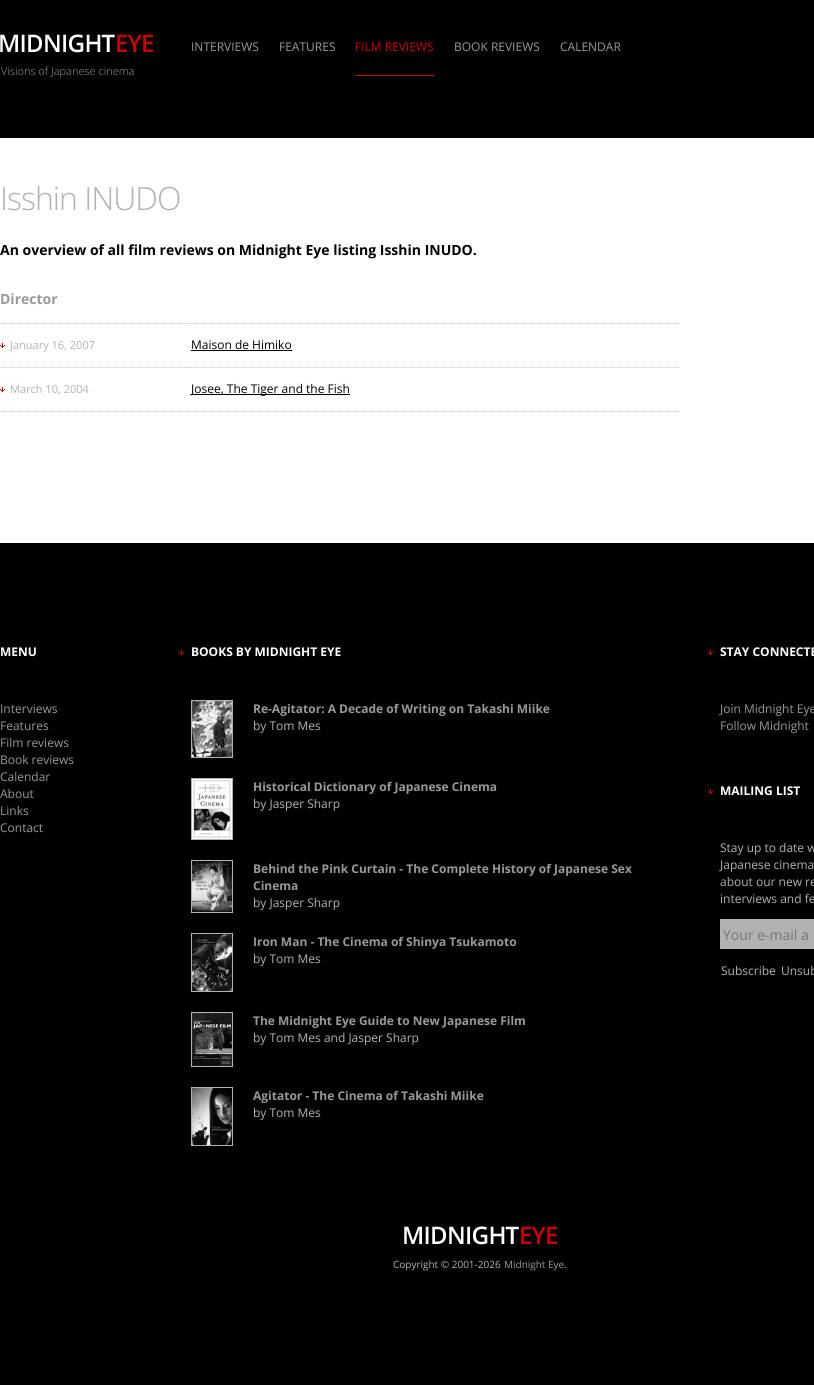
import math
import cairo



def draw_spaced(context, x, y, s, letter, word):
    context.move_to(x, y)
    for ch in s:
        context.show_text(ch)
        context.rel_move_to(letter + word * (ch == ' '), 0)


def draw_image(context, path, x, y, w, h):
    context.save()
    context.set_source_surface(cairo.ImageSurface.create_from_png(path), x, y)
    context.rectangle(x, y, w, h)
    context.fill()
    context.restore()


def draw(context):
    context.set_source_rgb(1, 1, 1)
    context.paint()
    context.set_source_rgb(0, 0, 0)
    context.rectangle(0, 0, 814, 138)
    context.fill()
    draw_image(context, "images/1.png", 0, 34, 153, 19)
    context.set_source_rgb(204 / 255, 0, 0)
    context.rectangle(355, 75, 79, 1)
    context.fill()
    context.new_path()
    context.move_to(0, 411.5)
    context.line_to(680, 411.5)
    context.set_source_rgb(204 / 255, 204 / 255, 204 / 255)
    context.set_line_width(1)
    context.set_dash([1, 1])
    context.stroke()
    draw_image(context, "images/2.png", 0, 343, 5, 5)
    context.new_path()
    context.move_to(0, 323.5)
    context.line_to(191, 323.5)
    context.stroke()
    context.new_path()
    context.move_to(191, 323.5)
    context.line_to(680, 323.5)
    context.stroke()
    context.set_source_rgb(0, 0, 0)
    context.rectangle(191, 350, 101, 1)
    context.fill()
    draw_image(context, "images/2.png", 0, 387, 5, 5)
    context.new_path()
    context.move_to(0, 367.5)
    context.line_to(191, 367.5)
    context.set_source_rgb(204 / 255, 204 / 255, 204 / 255)
    context.stroke()
    context.new_path()
    context.move_to(191, 367.5)
    context.line_to(680, 367.5)
    context.stroke()
    context.set_source_rgb(0, 0, 0)
    context.rectangle(191, 394, 159, 1)
    context.fill()
    context.rectangle(0, 543, 814, 842)
    context.fill()
    draw_image(context, "images/3.png", 179, 650, 5, 5)
    context.rectangle(191.5, 700.5, 41, 57)
    context.set_source_rgb(178 / 255, 178 / 255, 178 / 255)
    context.set_dash([])
    context.stroke()
    draw_image(context, "images/4.png", 192, 701, 40, 56)
    context.rectangle(191.5, 778.5, 41, 61)
    context.stroke()
    draw_image(context, "images/5.png", 192, 779, 40, 60)
    context.rectangle(191.5, 860.5, 41, 52)
    context.stroke()
    draw_image(context, "images/6.png", 192, 861, 40, 51)
    context.rectangle(191.5, 933.5, 41, 58)
    context.stroke()
    draw_image(context, "images/7.png", 192, 934, 40, 57)
    context.rectangle(191.5, 1012.5, 41, 54)
    context.stroke()
    draw_image(context, "images/8.png", 192, 1013, 40, 53)
    context.rectangle(191.5, 1087.5, 41, 58)
    context.stroke()
    draw_image(context, "images/9.png", 192, 1088, 40, 57)
    draw_image(context, "images/3.png", 708, 650, 5, 5)
    draw_image(context, "images/3.png", 708, 789, 5, 5)
    context.rectangle(720, 919, 94, 30)
    context.fill()
    draw_image(context, "images/1.png", 404, 1226, 153, 19)
    context.select_font_face("Open Sans")
    context.set_font_size(12)
    context.set_source_rgb(153 / 255, 153 / 255, 153 / 255)
    context.move_to(191, 51)
    context.show_text("INTERVIEWS")
    context.move_to(279, 51)
    context.show_text("FEATURES")
    context.set_source_rgb(204 / 255, 0, 0)
    context.move_to(355, 51)
    context.show_text("FILM REVIEWS")
    context.set_source_rgb(153 / 255, 153 / 255, 153 / 255)
    context.move_to(454, 51)
    context.show_text("BOOK REVIEWS")
    context.move_to(560, 51)
    context.show_text("CALENDAR")
    context.select_font_face("Open Sans Light")
    context.set_font_size(11)
    context.move_to(1, 75)
    context.show_text("Visions of Japanese cinema")
    context.set_font_size(32)
    context.set_source_rgb(178 / 255, 178 / 255, 178 / 255)
    draw_spaced(context, 0, 210, "Isshin INUDO", -1, 0)
    context.select_font_face("Open Sans", cairo.FontSlant.NORMAL, cairo.FontWeight.BOLD)
    context.set_font_size(14)
    context.set_source_rgb(0, 0, 0)
    context.move_to(0, 255)
    context.show_text("An overview of all film reviews on Midnight Eye listing Isshin INUDO.")
    context.set_source_rgb(153 / 255, 153 / 255, 153 / 255)
    context.move_to(0, 304)
    context.show_text("Director")
    context.select_font_face("Open Sans")
    context.set_font_size(11)
    context.set_source_rgb(178 / 255, 178 / 255, 178 / 255)
    context.move_to(10, 349)
    context.show_text("January 16, 2007")
    context.set_font_size(12)
    context.set_source_rgb(0, 0, 0)
    context.move_to(191, 349)
    context.show_text("Maison de Himiko")
    context.set_font_size(11)
    context.set_source_rgb(178 / 255, 178 / 255, 178 / 255)
    context.move_to(10, 393)
    context.show_text("March 10, 2004")
    context.set_font_size(12)
    context.set_source_rgb(0, 0, 0)
    context.move_to(191, 393)
    context.show_text("Josee, The Tiger and the Fish")
    context.select_font_face("Open Sans", cairo.FontSlant.NORMAL, cairo.FontWeight.BOLD)
    context.set_source_rgb(1, 1, 1)
    context.move_to(0, 656)
    context.show_text("MENU")
    context.select_font_face("Open Sans")
    context.set_source_rgb(153 / 255, 153 / 255, 153 / 255)
    context.move_to(0, 713)
    context.show_text("Interviews")
    context.move_to(0, 730)
    context.show_text("Features")
    context.move_to(0, 747)
    context.show_text("Film reviews")
    context.move_to(0, 764)
    context.show_text("Book reviews")
    context.move_to(0, 781)
    context.show_text("Calendar")
    context.move_to(0, 798)
    context.show_text("About")
    context.move_to(0, 815)
    context.show_text("Links")
    context.move_to(0, 832)
    context.show_text("Contact")
    context.select_font_face("Open Sans", cairo.FontSlant.NORMAL, cairo.FontWeight.BOLD)
    context.set_source_rgb(1, 1, 1)
    context.move_to(191, 656)
    context.show_text("BOOKS BY MIDNIGHT EYE")
    context.set_source_rgb(153 / 255, 153 / 255, 153 / 255)
    context.move_to(253, 713)
    context.show_text("Re-Agitator: A Decade of Writing on Takashi Miike")
    context.select_font_face("Open Sans")
    context.set_source_rgb(178 / 255, 178 / 255, 178 / 255)
    context.move_to(253, 730)
    context.show_text("by Tom Mes")
    context.select_font_face("Open Sans", cairo.FontSlant.NORMAL, cairo.FontWeight.BOLD)
    context.set_source_rgb(153 / 255, 153 / 255, 153 / 255)
    context.move_to(253, 791)
    context.show_text("Historical Dictionary of Japanese Cinema")
    context.select_font_face("Open Sans")
    context.set_source_rgb(178 / 255, 178 / 255, 178 / 255)
    context.move_to(253, 808)
    context.show_text("by Jasper Sharp")
    context.select_font_face("Open Sans", cairo.FontSlant.NORMAL, cairo.FontWeight.BOLD)
    context.set_source_rgb(153 / 255, 153 / 255, 153 / 255)
    context.move_to(253, 873)
    context.show_text("Behind the Pink Curtain - The Complete History of Japanese Sex")
    context.move_to(253, 890)
    context.show_text("Cinema")
    context.select_font_face("Open Sans")
    context.set_source_rgb(178 / 255, 178 / 255, 178 / 255)
    context.move_to(253, 907)
    context.show_text("by Jasper Sharp")
    context.select_font_face("Open Sans", cairo.FontSlant.NORMAL, cairo.FontWeight.BOLD)
    context.set_source_rgb(153 / 255, 153 / 255, 153 / 255)
    context.move_to(253, 946)
    context.show_text("Iron Man - The Cinema of Shinya Tsukamoto")
    context.select_font_face("Open Sans")
    context.set_source_rgb(178 / 255, 178 / 255, 178 / 255)
    context.move_to(253, 963)
    context.show_text("by Tom Mes")
    context.select_font_face("Open Sans", cairo.FontSlant.NORMAL, cairo.FontWeight.BOLD)
    context.set_source_rgb(153 / 255, 153 / 255, 153 / 255)
    context.move_to(253, 1025)
    context.show_text("The Midnight Eye Guide to New Japanese Film")
    context.select_font_face("Open Sans")
    context.set_source_rgb(178 / 255, 178 / 255, 178 / 255)
    context.move_to(253, 1042)
    context.show_text("by Tom Mes and Jasper Sharp")
    context.select_font_face("Open Sans", cairo.FontSlant.NORMAL, cairo.FontWeight.BOLD)
    context.set_source_rgb(153 / 255, 153 / 255, 153 / 255)
    context.move_to(253, 1100)
    context.show_text("Agitator - The Cinema of Takashi Miike")
    context.select_font_face("Open Sans")
    context.set_source_rgb(178 / 255, 178 / 255, 178 / 255)
    context.move_to(253, 1117)
    context.show_text("by Tom Mes")
    context.select_font_face("Open Sans", cairo.FontSlant.NORMAL, cairo.FontWeight.BOLD)
    context.set_source_rgb(1, 1, 1)
    context.move_to(720, 656)
    context.show_text("STAY CONNECTE")
    context.select_font_face("Open Sans")
    context.set_source_rgb(153 / 255, 153 / 255, 153 / 255)
    context.move_to(720, 713)
    context.show_text("Join Midnight Eye")
    context.move_to(720, 730)
    context.show_text("Follow Midnight")
    context.select_font_face("Open Sans", cairo.FontSlant.NORMAL, cairo.FontWeight.BOLD)
    context.set_source_rgb(1, 1, 1)
    context.move_to(720, 795)
    context.show_text("MAILING LIST")
    context.select_font_face("Open Sans")
    context.set_source_rgb(178 / 255, 178 / 255, 178 / 255)
    context.move_to(720, 852)
    context.show_text("Stay up to date w")
    context.move_to(720, 869)
    context.show_text("Japanese cinema")
    context.move_to(720, 886)
    context.show_text("about our new re")
    context.move_to(720, 903)
    context.show_text("interviews and fe")
    context.set_font_size(14)
    context.set_source_rgb(117 / 255, 117 / 255, 117 / 255)
    context.move_to(723, 940)
    context.show_text("Your e-mail a")
    context.set_font_size(12)
    context.set_source_rgb(178 / 255, 178 / 255, 178 / 255)
    context.move_to(721, 975)
    context.show_text("Subscribe")
    context.move_to(781, 975)
    context.show_text("Unsub")
    context.set_font_size(10)
    context.move_to(393, 1268)
    context.show_text("Copyright © 2001-2026")
    context.set_source_rgb(153 / 255, 153 / 255, 153 / 255)
    context.move_to(504, 1268)
    context.show_text("Midnight Eye")
    context.set_source_rgb(178 / 255, 178 / 255, 178 / 255)
    context.move_to(564, 1268)
    context.show_text(".")


surface = cairo.ImageSurface(cairo.Format.RGB24, 814, 1385)
context = cairo.Context(surface)
options = cairo.FontOptions()
options.set_hint_metrics(cairo.HintMetrics.OFF)
options.set_hint_style(cairo.HintStyle.NONE)
context.set_font_options(options)
context.set_miter_limit(4)
draw(context)
surface.write_to_png("out.png")
